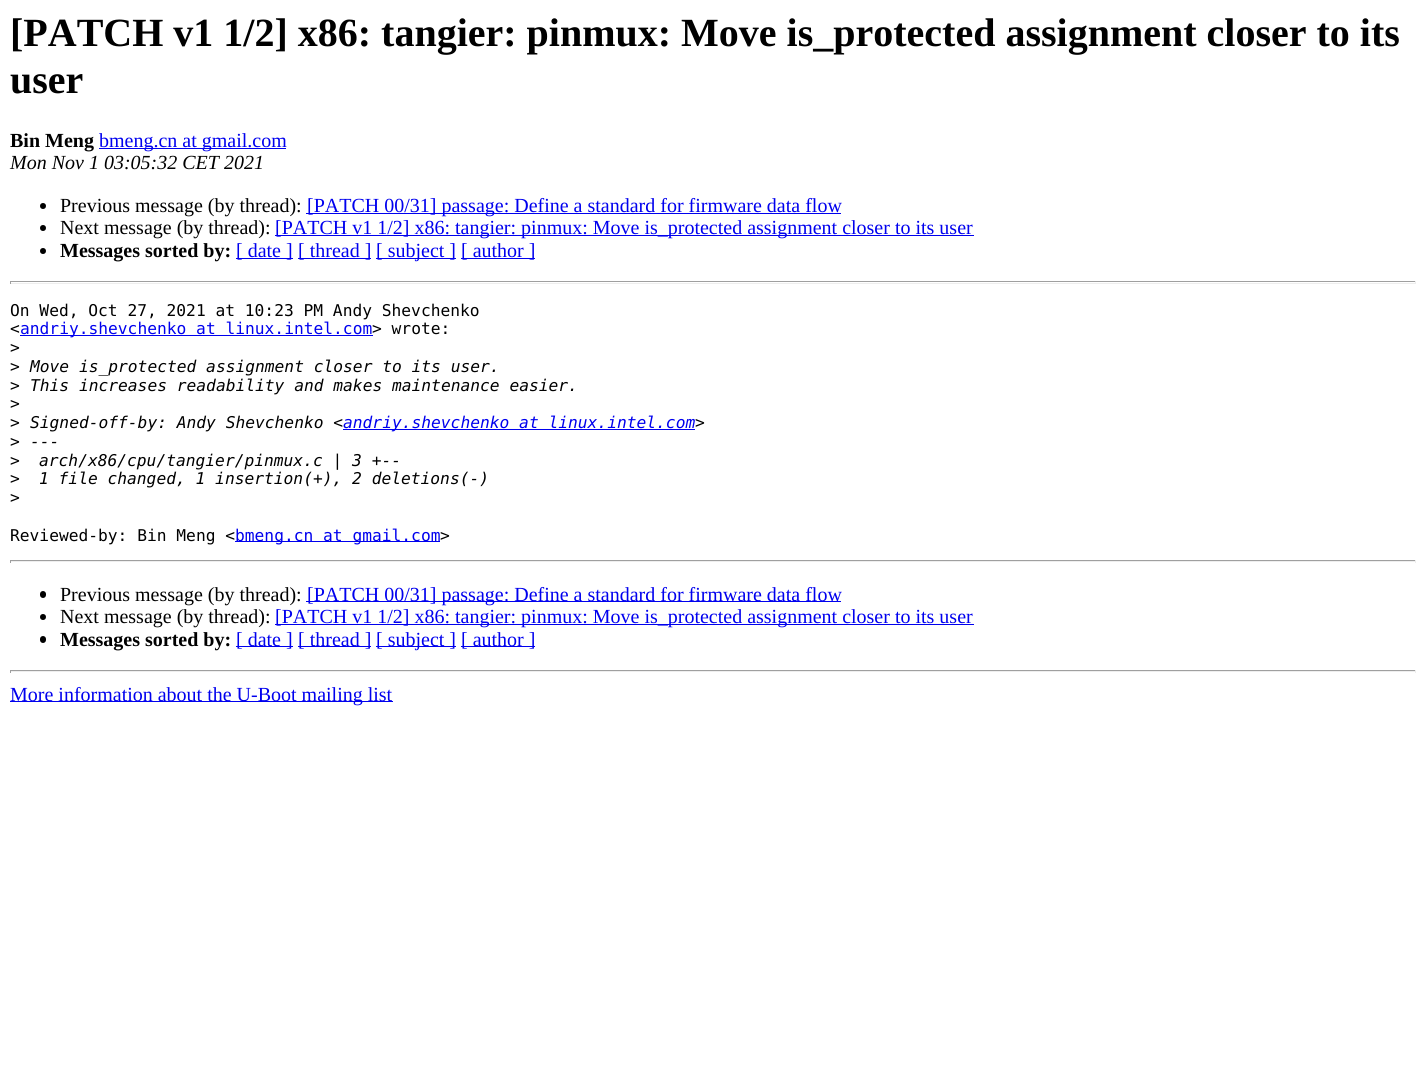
import math
import cairo



def rounded_rect(context, x, y, w, h, r):
    context.new_sub_path()
    for i, (u, v) in enumerate([(x + w - r, y + h - r), (x + r, y + h - r), (x + r, y + r), (x + w - r, y + r)]):
        context.arc(u, v, r, i * math.pi / 2, (i + 1) * math.pi / 2)
    context.close_path()


def draw(context):
    context.set_source_rgb(1, 1, 1)
    context.paint()
    context.set_source_rgb(0, 0, 238 / 255)
    context.rectangle(99, 148, 187, 1)
    context.fill()
    context.set_source_rgb(0, 0, 0)
    context.arc(43, 206, 3, 0, 2 * math.pi)
    context.fill()
    context.set_source_rgb(0, 0, 238 / 255)
    context.rectangle(306, 213, 535, 1)
    context.fill()
    context.set_source_rgb(0, 0, 0)
    context.arc(43, 228, 3, 0, 2 * math.pi)
    context.fill()
    context.set_source_rgb(0, 0, 238 / 255)
    context.rectangle(275, 235, 699, 1)
    context.fill()
    context.set_source_rgb(0, 0, 0)
    context.arc(43, 251, 3, 0, 2 * math.pi)
    context.fill()
    context.set_source_rgb(0, 0, 238 / 255)
    context.rectangle(236, 258, 57, 1)
    context.fill()
    context.rectangle(298, 258, 73, 1)
    context.fill()
    context.rectangle(376, 258, 80, 1)
    context.fill()
    context.rectangle(461, 258, 74, 1)
    context.fill()
    context.set_source_rgb(159 / 255, 159 / 255, 159 / 255)
    context.rectangle(10, 281, 1406, 1)
    context.fill()
    context.set_source_rgb(238 / 255, 238 / 255, 238 / 255)
    context.rectangle(1415, 281, 1, 3)
    context.fill()
    context.rectangle(10, 283, 1406, 1)
    context.fill()
    context.set_source_rgb(159 / 255, 159 / 255, 159 / 255)
    context.rectangle(10, 281, 1, 3)
    context.fill()
    context.set_source_rgb(0, 0, 238 / 255)
    context.rectangle(20, 335, 353, 1)
    context.fill()
    context.rectangle(343, 429, 352, 1)
    context.fill()
    context.rectangle(235, 541, 205, 1)
    context.fill()
    context.set_source_rgb(159 / 255, 159 / 255, 159 / 255)
    context.rectangle(10, 560, 1406, 1)
    context.fill()
    context.set_source_rgb(238 / 255, 238 / 255, 238 / 255)
    context.rectangle(1415, 560, 1, 3)
    context.fill()
    context.rectangle(10, 561, 1406, 1)
    context.fill()
    context.set_source_rgb(159 / 255, 159 / 255, 159 / 255)
    context.rectangle(10, 560, 1, 3)
    context.fill()
    context.set_source_rgb(0, 0, 0)
    rounded_rect(context, 40, 591, 6, 7, 3)
    context.fill()
    context.set_source_rgb(0, 0, 238 / 255)
    context.rectangle(306, 601, 535, 1)
    context.fill()
    context.set_source_rgb(0, 0, 0)
    context.arc(43, 617, 3, 0, 2 * math.pi)
    context.fill()
    context.set_source_rgb(0, 0, 238 / 255)
    context.rectangle(275, 624, 699, 1)
    context.fill()
    context.set_source_rgb(0, 0, 0)
    rounded_rect(context, 40, 636, 6, 7, 3)
    context.fill()
    context.set_source_rgb(0, 0, 238 / 255)
    context.rectangle(236, 646, 57, 1)
    context.fill()
    context.rectangle(298, 646, 73, 1)
    context.fill()
    context.rectangle(376, 646, 80, 1)
    context.fill()
    context.rectangle(461, 646, 74, 1)
    context.fill()
    context.set_source_rgb(159 / 255, 159 / 255, 159 / 255)
    context.rectangle(10, 670, 1406, 1)
    context.fill()
    context.set_source_rgb(238 / 255, 238 / 255, 238 / 255)
    context.rectangle(1415, 670, 1, 3)
    context.fill()
    context.rectangle(10, 671, 1406, 1)
    context.fill()
    context.set_source_rgb(159 / 255, 159 / 255, 159 / 255)
    context.rectangle(10, 670, 1, 3)
    context.fill()
    context.set_source_rgb(0, 0, 238 / 255)
    context.rectangle(10, 701, 383, 1)
    context.fill()
    context.select_font_face("Liberation Serif", cairo.FontSlant.NORMAL, cairo.FontWeight.BOLD)
    context.set_font_size(40)
    context.set_source_rgb(0, 0, 0)
    context.move_to(10, 46)
    context.show_text("[PATCH v1 1/2] x86: tangier: pinmux: Move is_protected assignment closer to its")
    context.move_to(10, 93)
    context.show_text("user")
    context.set_font_size(20)
    context.move_to(10, 147)
    context.show_text("Bin Meng")
    context.select_font_face("Liberation Serif")
    context.set_source_rgb(0, 0, 238 / 255)
    context.move_to(99, 147)
    context.show_text("bmeng.cn at gmail.com")
    context.select_font_face("Liberation Serif", cairo.FontSlant.ITALIC)
    context.set_source_rgb(0, 0, 0)
    context.move_to(10, 169)
    context.show_text("Mon Nov 1 03:05:32 CET 2021")
    context.select_font_face("Liberation Serif")
    context.move_to(60, 212)
    context.show_text("Previous message (by thread):")
    context.set_source_rgb(0, 0, 238 / 255)
    context.move_to(307, 212)
    context.show_text("[PATCH 00/31] passage: Define a standard for firmware data flow")
    context.set_source_rgb(0, 0, 0)
    context.move_to(60, 234)
    context.show_text("Next message (by thread):")
    context.set_source_rgb(0, 0, 238 / 255)
    context.move_to(275, 234)
    context.show_text("[PATCH v1 1/2] x86: tangier: pinmux: Move is_protected assignment closer to its user")
    context.select_font_face("Liberation Serif", cairo.FontSlant.NORMAL, cairo.FontWeight.BOLD)
    context.set_source_rgb(0, 0, 0)
    context.move_to(60, 257)
    context.show_text("Messages sorted by:")
    context.select_font_face("Liberation Serif")
    context.set_source_rgb(0, 0, 238 / 255)
    context.move_to(236, 257)
    context.show_text("[ date ]")
    context.move_to(298, 257)
    context.show_text("[ thread ]")
    context.move_to(376, 257)
    context.show_text("[ subject ]")
    context.move_to(461, 257)
    context.show_text("[ author ]")
    context.select_font_face("DejaVu Sans Mono")
    context.set_font_size(16.25)
    context.set_source_rgb(0, 0, 0)
    context.move_to(10, 316)
    context.show_text("On Wed, Oct 27, 2021 at 10:23 PM Andy Shevchenko")
    context.move_to(10, 334)
    context.show_text("<")
    context.set_source_rgb(0, 0, 238 / 255)
    context.move_to(20, 334)
    context.show_text("andriy.shevchenko at linux.intel.com")
    context.set_source_rgb(0, 0, 0)
    context.move_to(372, 334)
    context.show_text("> wrote:")
    context.move_to(10, 353)
    context.show_text(">")
    context.move_to(10, 372)
    context.show_text(">")
    context.select_font_face("DejaVu Sans Mono", cairo.FontSlant.ITALIC)
    context.move_to(30, 372)
    context.show_text("Move is_protected assignment closer to its user.")
    context.select_font_face("DejaVu Sans Mono")
    context.move_to(10, 391)
    context.show_text(">")
    context.select_font_face("DejaVu Sans Mono", cairo.FontSlant.ITALIC)
    context.move_to(30, 391)
    context.show_text("This increases readability and makes maintenance easier.")
    context.select_font_face("DejaVu Sans Mono")
    context.move_to(10, 409)
    context.show_text(">")
    context.move_to(10, 428)
    context.show_text(">")
    context.select_font_face("DejaVu Sans Mono", cairo.FontSlant.ITALIC)
    context.move_to(30, 428)
    context.show_text("Signed-off-by: Andy Shevchenko <")
    context.set_source_rgb(0, 0, 238 / 255)
    context.move_to(343, 428)
    context.show_text("andriy.shevchenko at linux.intel.com")
    context.set_source_rgb(0, 0, 0)
    context.move_to(695, 428)
    context.show_text(">")
    context.select_font_face("DejaVu Sans Mono")
    context.move_to(10, 447)
    context.show_text(">")
    context.select_font_face("DejaVu Sans Mono", cairo.FontSlant.ITALIC)
    context.move_to(30, 447)
    context.show_text("---")
    context.select_font_face("DejaVu Sans Mono")
    context.move_to(10, 466)
    context.show_text(">")
    context.select_font_face("DejaVu Sans Mono", cairo.FontSlant.ITALIC)
    context.move_to(39, 466)
    context.show_text("arch/x86/cpu/tangier/pinmux.c | 3 +--")
    context.select_font_face("DejaVu Sans Mono")
    context.move_to(10, 484)
    context.show_text(">")
    context.select_font_face("DejaVu Sans Mono", cairo.FontSlant.ITALIC)
    context.move_to(39, 484)
    context.show_text("1 file changed, 1 insertion(+), 2 deletions(-)")
    context.select_font_face("DejaVu Sans Mono")
    context.move_to(10, 503)
    context.show_text(">")
    context.move_to(10, 541)
    context.show_text("Reviewed-by: Bin Meng <")
    context.set_source_rgb(0, 0, 238 / 255)
    context.move_to(235, 541)
    context.show_text("bmeng.cn at gmail.com")
    context.set_source_rgb(0, 0, 0)
    context.move_to(440, 541)
    context.show_text(">")
    context.select_font_face("Liberation Serif")
    context.set_font_size(20)
    context.move_to(60, 601)
    context.show_text("Previous message (by thread):")
    context.set_source_rgb(0, 0, 238 / 255)
    context.move_to(307, 601)
    context.show_text("[PATCH 00/31] passage: Define a standard for firmware data flow")
    context.set_source_rgb(0, 0, 0)
    context.move_to(60, 623)
    context.show_text("Next message (by thread):")
    context.set_source_rgb(0, 0, 238 / 255)
    context.move_to(275, 623)
    context.show_text("[PATCH v1 1/2] x86: tangier: pinmux: Move is_protected assignment closer to its user")
    context.select_font_face("Liberation Serif", cairo.FontSlant.NORMAL, cairo.FontWeight.BOLD)
    context.set_source_rgb(0, 0, 0)
    context.move_to(60, 646)
    context.show_text("Messages sorted by:")
    context.select_font_face("Liberation Serif")
    context.set_source_rgb(0, 0, 238 / 255)
    context.move_to(236, 646)
    context.show_text("[ date ]")
    context.move_to(298, 646)
    context.show_text("[ thread ]")
    context.move_to(376, 646)
    context.show_text("[ subject ]")
    context.move_to(461, 646)
    context.show_text("[ author ]")
    context.move_to(10, 701)
    context.show_text("More information about the U-Boot mailing list")


surface = cairo.ImageSurface(cairo.Format.RGB24, 1426, 1085)
context = cairo.Context(surface)
options = cairo.FontOptions()
options.set_hint_metrics(cairo.HintMetrics.OFF)
options.set_hint_style(cairo.HintStyle.NONE)
context.set_font_options(options)
context.set_miter_limit(4)
draw(context)
surface.write_to_png("out.png")
